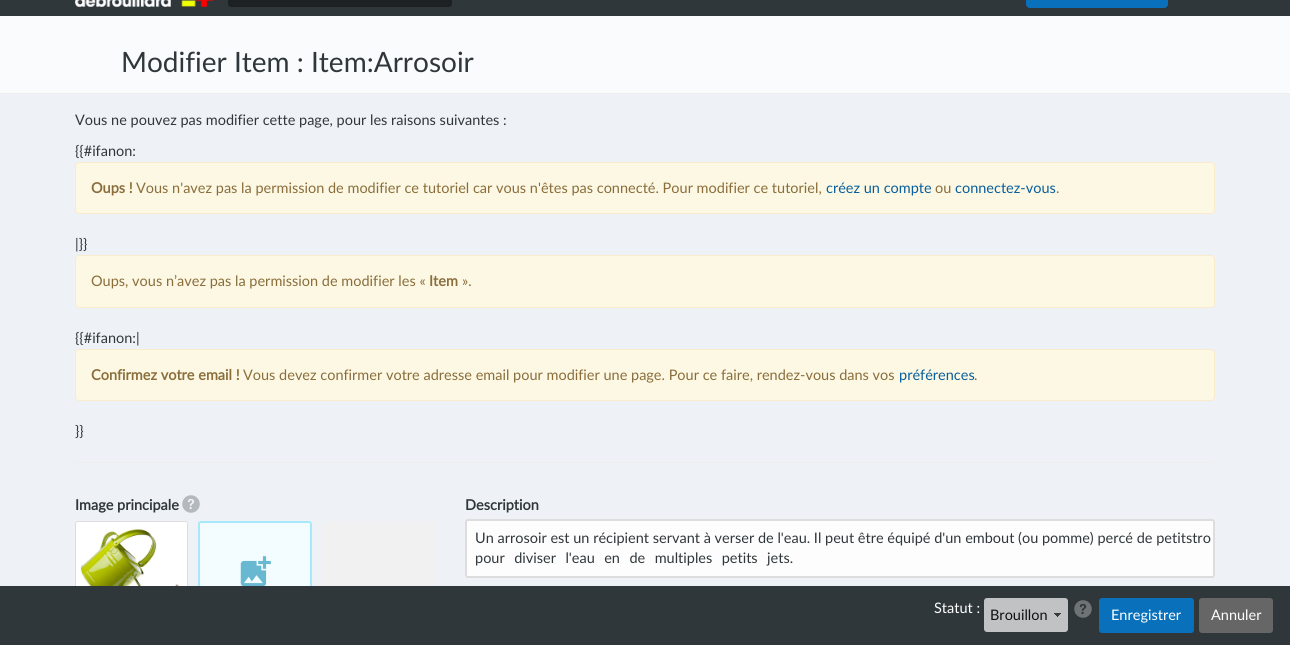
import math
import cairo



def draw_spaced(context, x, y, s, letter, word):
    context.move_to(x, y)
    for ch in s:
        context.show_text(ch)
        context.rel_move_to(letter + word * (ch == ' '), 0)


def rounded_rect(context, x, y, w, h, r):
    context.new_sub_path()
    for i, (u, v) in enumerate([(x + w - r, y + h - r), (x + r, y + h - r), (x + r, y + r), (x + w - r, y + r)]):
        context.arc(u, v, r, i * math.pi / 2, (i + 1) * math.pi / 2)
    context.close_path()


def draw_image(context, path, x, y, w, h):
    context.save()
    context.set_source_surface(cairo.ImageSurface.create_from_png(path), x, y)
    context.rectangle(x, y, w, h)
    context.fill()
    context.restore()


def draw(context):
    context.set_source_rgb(238 / 255, 242 / 255, 246 / 255)
    context.paint()
    context.set_source_rgb(48 / 255, 55 / 255, 59 / 255)
    context.rectangle(0, 0, 1290, 16)
    context.fill()
    draw_image(context, "images/1.png", 75, 0, 138, 7)
    context.set_source_rgb(29 / 255, 33 / 255, 35 / 255)
    rounded_rect(context, 228, -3, 224, 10, 3)
    context.fill()
    context.set_source_rgb(9 / 255, 113 / 255, 188 / 255)
    rounded_rect(context, 1026, -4, 142, 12, 4)
    context.fill()
    context.set_source_rgb(250 / 255, 251 / 255, 252 / 255)
    context.rectangle(0, 16, 1290, 77)
    context.fill()
    context.set_source_rgb(238 / 255, 238 / 255, 238 / 255)
    context.rectangle(0, 93, 1290, 1)
    context.fill()
    context.set_source_rgb(252 / 255, 248 / 255, 227 / 255)
    rounded_rect(context, 75.5, 162.5, 1139, 51, 3.5)
    context.fill_preserve()
    context.set_source_rgb(250 / 255, 235 / 255, 204 / 255)
    context.set_line_width(1)
    context.stroke()
    context.set_source_rgb(252 / 255, 248 / 255, 227 / 255)
    rounded_rect(context, 75.5, 255.5, 1139, 52, 3.5)
    context.fill_preserve()
    context.set_source_rgb(250 / 255, 235 / 255, 204 / 255)
    context.stroke()
    context.set_source_rgb(252 / 255, 248 / 255, 227 / 255)
    rounded_rect(context, 75.5, 349.5, 1139, 51, 3.5)
    context.fill_preserve()
    context.set_source_rgb(250 / 255, 235 / 255, 204 / 255)
    context.stroke()
    context.set_source_rgb(238 / 255, 238 / 255, 238 / 255)
    context.rectangle(75, 462, 1140, 1)
    context.fill()
    draw_image(context, "images/2.png", 182, 495, 18, 18)
    rounded_rect(context, 75.5, 521.5, 112, 101, 2.5)
    context.set_source_rgb(221 / 255, 221 / 255, 221 / 255)
    context.stroke()
    draw_image(context, "images/3.png", 76, 522, 111, 64)
    context.set_source_rgb(243 / 255, 253 / 255, 1)
    rounded_rect(context, 199, 522, 112, 100, 2)
    context.fill_preserve()
    context.set_source_rgb(165 / 255, 233 / 255, 250 / 255)
    context.set_line_width(2)
    context.stroke()
    draw_image(context, "images/4.png", 240, 556, 31, 30)
    context.set_source_rgb(241 / 255, 241 / 255, 241 / 255)
    rounded_rect(context, 322, 521, 113, 102, 3)
    context.fill()
    context.set_source_rgb(253 / 255, 253 / 255, 253 / 255)
    rounded_rect(context, 466, 520, 748, 57, 2)
    context.fill_preserve()
    context.set_source_rgb(221 / 255, 221 / 255, 221 / 255)
    context.stroke()
    context.set_source_rgb(48 / 255, 55 / 255, 59 / 255)
    context.rectangle(0, 586, 1290, 59)
    context.fill()
    context.set_source_rgb(192 / 255, 194 / 255, 195 / 255)
    rounded_rect(context, 984, 598, 84, 34, 3)
    context.fill()
    draw_image(context, "images/5.png", 1054, 613, 7, 4)
    draw_image(context, "images/6.png", 1074, 600, 18, 18)
    context.set_source_rgb(9 / 255, 113 / 255, 188 / 255)
    rounded_rect(context, 1099, 598, 95, 35, 3)
    context.fill()
    context.set_source_rgb(102 / 255, 102 / 255, 102 / 255)
    rounded_rect(context, 1199, 598, 74, 35, 3)
    context.fill()
    context.select_font_face("Lato")
    context.set_font_size(28)
    context.set_source_rgb(48 / 255, 55 / 255, 59 / 255)
    context.move_to(121, 72)
    context.show_text("Modifier Item : Item:Arrosoir")
    context.set_font_size(14.5)
    context.move_to(75, 125)
    context.show_text("Vous ne pouvez pas modifier cette page, pour les raisons suivantes :")
    context.move_to(75, 156)
    context.show_text("{{#ifanon:")
    context.select_font_face("Lato", cairo.FontSlant.NORMAL, cairo.FontWeight.BOLD)
    context.set_source_rgb(138 / 255, 109 / 255, 59 / 255)
    context.move_to(91, 193)
    context.show_text("Oups !")
    context.select_font_face("Lato")
    context.move_to(136, 193)
    context.show_text("Vous n'avez pas la permission de modifier ce tutoriel car vous n'êtes pas connecté. Pour modifier ce tutoriel,")
    context.set_source_rgb(7 / 255, 94 / 255, 156 / 255)
    context.move_to(826, 193)
    context.show_text("créez un compte")
    context.set_source_rgb(138 / 255, 109 / 255, 59 / 255)
    context.move_to(935, 193)
    context.show_text("ou")
    context.set_source_rgb(7 / 255, 94 / 255, 156 / 255)
    context.move_to(955, 193)
    context.show_text("connectez-vous")
    context.set_source_rgb(138 / 255, 109 / 255, 59 / 255)
    context.move_to(1056, 193)
    context.show_text(".")
    context.set_source_rgb(48 / 255, 55 / 255, 59 / 255)
    context.move_to(75, 249)
    context.show_text("|}}")
    context.set_source_rgb(138 / 255, 109 / 255, 59 / 255)
    context.move_to(91, 286)
    context.show_text("Oups, vous n’avez pas la permission de modifier les «")
    context.select_font_face("Lato", cairo.FontSlant.NORMAL, cairo.FontWeight.BOLD)
    context.move_to(429, 286)
    context.show_text("Item")
    context.select_font_face("Lato")
    context.move_to(462, 286)
    context.show_text("».")
    context.set_source_rgb(48 / 255, 55 / 255, 59 / 255)
    context.move_to(75, 343)
    context.show_text("{{#ifanon:|")
    context.select_font_face("Lato", cairo.FontSlant.NORMAL, cairo.FontWeight.BOLD)
    context.set_source_rgb(138 / 255, 109 / 255, 59 / 255)
    context.move_to(91, 380)
    context.show_text("Confirmez votre email !")
    context.select_font_face("Lato")
    context.move_to(243, 380)
    context.show_text("Vous devez confirmer votre adresse email pour modifier une page. Pour ce faire, rendez-vous dans vos")
    context.set_source_rgb(7 / 255, 94 / 255, 156 / 255)
    context.move_to(899, 380)
    context.show_text("préférences")
    context.set_source_rgb(138 / 255, 109 / 255, 59 / 255)
    context.move_to(974, 380)
    context.show_text(".")
    context.set_source_rgb(48 / 255, 55 / 255, 59 / 255)
    context.move_to(75, 436)
    context.show_text("}}")
    context.select_font_face("Lato", cairo.FontSlant.NORMAL, cairo.FontWeight.BOLD)
    context.move_to(75, 510)
    context.show_text("Image principale")
    context.move_to(465, 510)
    context.show_text("Description")
    context.select_font_face("Lato")
    context.move_to(475, 543)
    context.show_text("Un arrosoir est un récipient servant à verser de l'eau. Il peut être équipé d'un embout (ou pomme) percé de petitstro")
    draw_spaced(context, 475, 563, "pour diviser l'eau en de multiples petits jets.", 0, 5.75)
    context.set_source_rgb(1, 1, 1)
    context.move_to(934, 613)
    context.show_text("Statut :")
    context.set_source_rgb(14 / 255, 17 / 255, 18 / 255)
    context.move_to(990, 620)
    context.show_text("Brouillon")
    context.set_source_rgb(1, 1, 1)
    context.move_to(1111, 620)
    context.show_text("Enregistrer")
    context.move_to(1211, 620)
    context.show_text("Annuler")


surface = cairo.ImageSurface(cairo.Format.RGB24, 1290, 645)
context = cairo.Context(surface)
options = cairo.FontOptions()
options.set_hint_metrics(cairo.HintMetrics.OFF)
options.set_hint_style(cairo.HintStyle.NONE)
context.set_font_options(options)
context.set_miter_limit(4)
draw(context)
surface.write_to_png("out.png")
